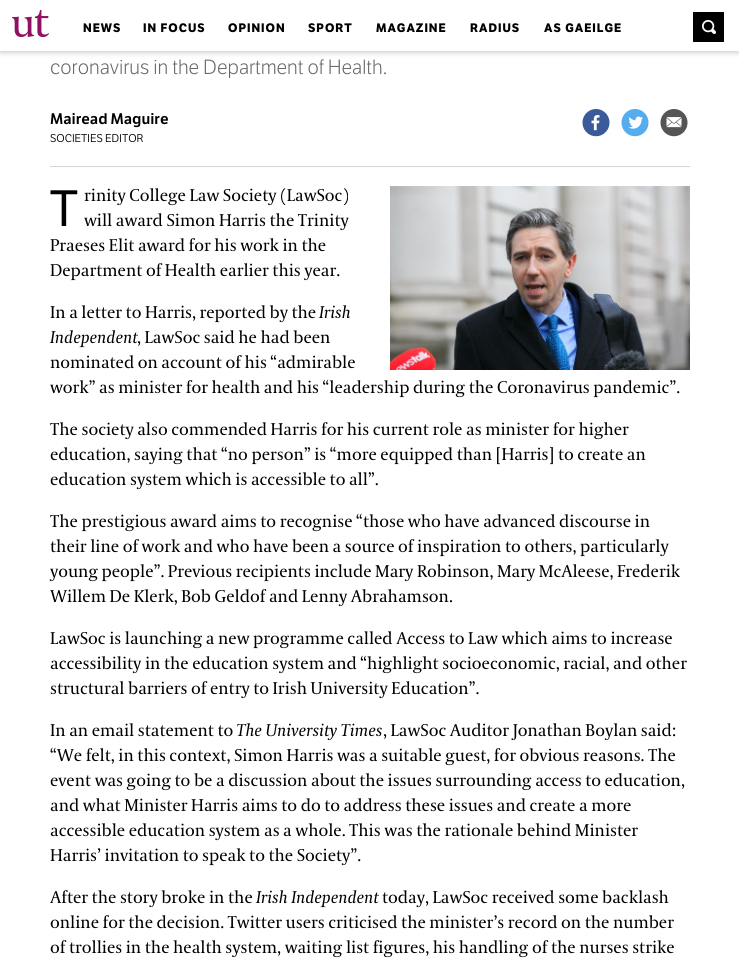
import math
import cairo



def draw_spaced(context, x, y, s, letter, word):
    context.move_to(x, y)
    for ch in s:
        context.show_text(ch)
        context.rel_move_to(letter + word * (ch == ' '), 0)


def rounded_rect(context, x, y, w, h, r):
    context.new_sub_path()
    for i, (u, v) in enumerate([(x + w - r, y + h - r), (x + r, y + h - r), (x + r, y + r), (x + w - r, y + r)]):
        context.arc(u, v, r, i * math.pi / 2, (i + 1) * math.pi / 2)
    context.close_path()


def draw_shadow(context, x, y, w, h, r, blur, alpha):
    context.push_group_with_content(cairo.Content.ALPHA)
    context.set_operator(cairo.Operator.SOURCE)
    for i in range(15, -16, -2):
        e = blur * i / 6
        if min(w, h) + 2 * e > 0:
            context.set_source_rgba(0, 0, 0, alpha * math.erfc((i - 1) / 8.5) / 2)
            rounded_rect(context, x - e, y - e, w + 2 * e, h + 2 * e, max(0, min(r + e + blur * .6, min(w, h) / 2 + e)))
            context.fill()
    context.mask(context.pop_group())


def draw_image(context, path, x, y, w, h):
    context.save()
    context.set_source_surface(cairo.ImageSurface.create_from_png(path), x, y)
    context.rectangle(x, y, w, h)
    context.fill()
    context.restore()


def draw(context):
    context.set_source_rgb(1, 1, 1)
    context.paint()
    context.set_source_rgb(0, 0, 0)
    draw_shadow(context, 0, 0, 739, 51, 0, 3.5, 0.3)
    context.set_source_rgb(1, 1, 1)
    context.rectangle(0, 0, 739, 51)
    context.fill()
    draw_image(context, "images/1.png", 12, 10, 37, 27)
    context.set_source_rgb(0, 0, 0)
    context.rectangle(693, 12, 31, 30)
    context.fill()
    draw_image(context, "images/2.png", 702, 20, 14, 14)
    context.set_source_rgb(59 / 255, 90 / 255, 153 / 255)
    context.rectangle(582, 109, 28, 28)
    context.fill()
    draw_image(context, "images/3.png", 580, 109, 32, 42)
    context.set_source_rgb(85 / 255, 172 / 255, 238 / 255)
    context.rectangle(621, 109, 28, 28)
    context.fill()
    draw_image(context, "images/4.png", 619, 109, 32, 42)
    context.set_source_rgb(85 / 255, 85 / 255, 85 / 255)
    context.rectangle(660, 109, 28, 28)
    context.fill()
    draw_image(context, "images/5.png", 658, 109, 32, 42)
    draw_image(context, "images/6.png", 390, 186, 300, 184)
    context.set_source_rgb(214 / 255, 213 / 255, 213 / 255)
    context.rectangle(50, 166, 640, 1)
    context.fill()
    context.select_font_face("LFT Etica", cairo.FontSlant.NORMAL, cairo.FontWeight.BOLD)
    context.set_font_size(12)
    context.set_source_rgb(0, 0, 0)
    draw_spaced(context, 83, 32, "NEWS", 1, 0)
    draw_spaced(context, 143, 32, "IN FOCUS", 1, 0)
    draw_spaced(context, 228, 32, "OPINION", 1, 0)
    draw_spaced(context, 308, 32, "SPORT", 1, 0)
    draw_spaced(context, 376, 32, "MAGAZINE", 1, 0)
    draw_spaced(context, 470, 32, "RADIUS", 1, 0)
    draw_spaced(context, 544, 32, "AS GAEILGE", 1, 0)
    context.select_font_face("LFT Etica Light")
    context.set_font_size(20)
    context.set_source_rgb(105 / 255, 105 / 255, 105 / 255)
    context.move_to(50, 74)
    context.show_text("coronavirus in the Department of Health.")
    context.select_font_face("LFT Etica SemiBold")
    context.set_font_size(15)
    context.set_source_rgb(0, 0, 0)
    context.move_to(50, 124)
    context.show_text("Mairead Maguire")
    context.select_font_face("LFT Etica")
    context.set_font_size(11)
    context.move_to(50, 142)
    context.show_text("SOCIETIES EDITOR")
    context.select_font_face("Noto Sans")
    context.set_font_size(50)
    context.move_to(50, 226)
    context.show_text("T")
    context.select_font_face("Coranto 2")
    context.set_font_size(17)
    context.move_to(84, 201)
    context.show_text("rinity College Law Society (LawSoc)")
    context.move_to(84, 226)
    context.show_text("will award Simon Harris the Trinity")
    context.move_to(50, 251)
    context.show_text("Praeses Elit award for his work in the")
    context.move_to(50, 276)
    context.show_text("Department of Health earlier this year.")
    context.move_to(50, 318)
    context.show_text("In a letter to Harris, reported by the")
    context.select_font_face("Coranto 2", cairo.FontSlant.ITALIC)
    context.move_to(319, 318)
    context.show_text("Irish")
    context.move_to(50, 343)
    context.show_text("Independent")
    context.select_font_face("Coranto 2")
    context.move_to(137, 343)
    context.show_text(", LawSoc said he had been")
    context.move_to(50, 368)
    context.show_text("nominated on account of his “admirable")
    context.move_to(50, 393)
    context.show_text("work” as minister for health and his “leadership during the Coronavirus pandemic”.")
    context.move_to(50, 435)
    context.show_text("The society also commended Harris for his current role as minister for higher")
    context.move_to(50, 460)
    context.show_text("education, saying that “no person” is “more equipped than [Harris] to create an")
    context.move_to(50, 485)
    context.show_text("education system which is accessible to all”.")
    context.move_to(50, 527)
    context.show_text("The prestigious award aims to recognise “those who have advanced discourse in")
    context.move_to(50, 552)
    context.show_text("their line of work and who have been a source of inspiration to others, particularly")
    context.move_to(50, 577)
    context.show_text("young people”. Previous recipients include Mary Robinson, Mary McAleese, Frederik")
    context.move_to(50, 602)
    context.show_text("Willem De Klerk, Bob Geldof and Lenny Abrahamson.")
    context.move_to(50, 644)
    context.show_text("LawSoc is launching a new programme called Access to Law which aims to increase")
    context.move_to(50, 669)
    context.show_text("accessibility in the education system and “highlight socioeconomic, racial, and other")
    context.move_to(50, 694)
    context.show_text("structural barriers of entry to Irish University Education”.")
    context.move_to(50, 736)
    context.show_text("In an email statement to")
    context.select_font_face("Coranto 2", cairo.FontSlant.ITALIC)
    context.move_to(236, 736)
    context.show_text("The University Times")
    context.select_font_face("Coranto 2")
    context.move_to(383, 736)
    context.show_text(", LawSoc Auditor Jonathan Boylan said:")
    context.move_to(50, 761)
    context.show_text("“We felt, in this context, Simon Harris was a suitable guest, for obvious reasons. The")
    context.move_to(50, 786)
    context.show_text("event was going to be a discussion about the issues surrounding access to education,")
    context.move_to(50, 811)
    context.show_text("and what Minister Harris aims to do to address these issues and create a more")
    context.move_to(50, 836)
    context.show_text("accessible education system as a whole. This was the rationale behind Minister")
    context.move_to(50, 861)
    context.show_text("Harris’ invitation to speak to the Society”.")
    context.move_to(50, 903)
    context.show_text("After the story broke in the")
    context.select_font_face("Coranto 2", cairo.FontSlant.ITALIC)
    context.move_to(256, 903)
    context.show_text("Irish Independent")
    context.select_font_face("Coranto 2")
    context.move_to(382, 903)
    context.show_text("today, LawSoc received some backlash")
    context.move_to(50, 928)
    context.show_text("online for the decision. Twitter users criticised the minister’s record on the number")
    context.move_to(50, 953)
    context.show_text("of trollies in the health system, waiting list figures, his handling of the nurses strike")


surface = cairo.ImageSurface(cairo.Format.RGB24, 739, 969)
context = cairo.Context(surface)
options = cairo.FontOptions()
options.set_hint_metrics(cairo.HintMetrics.OFF)
options.set_hint_style(cairo.HintStyle.NONE)
context.set_font_options(options)
context.set_miter_limit(4)
draw(context)
surface.write_to_png("out.png")
